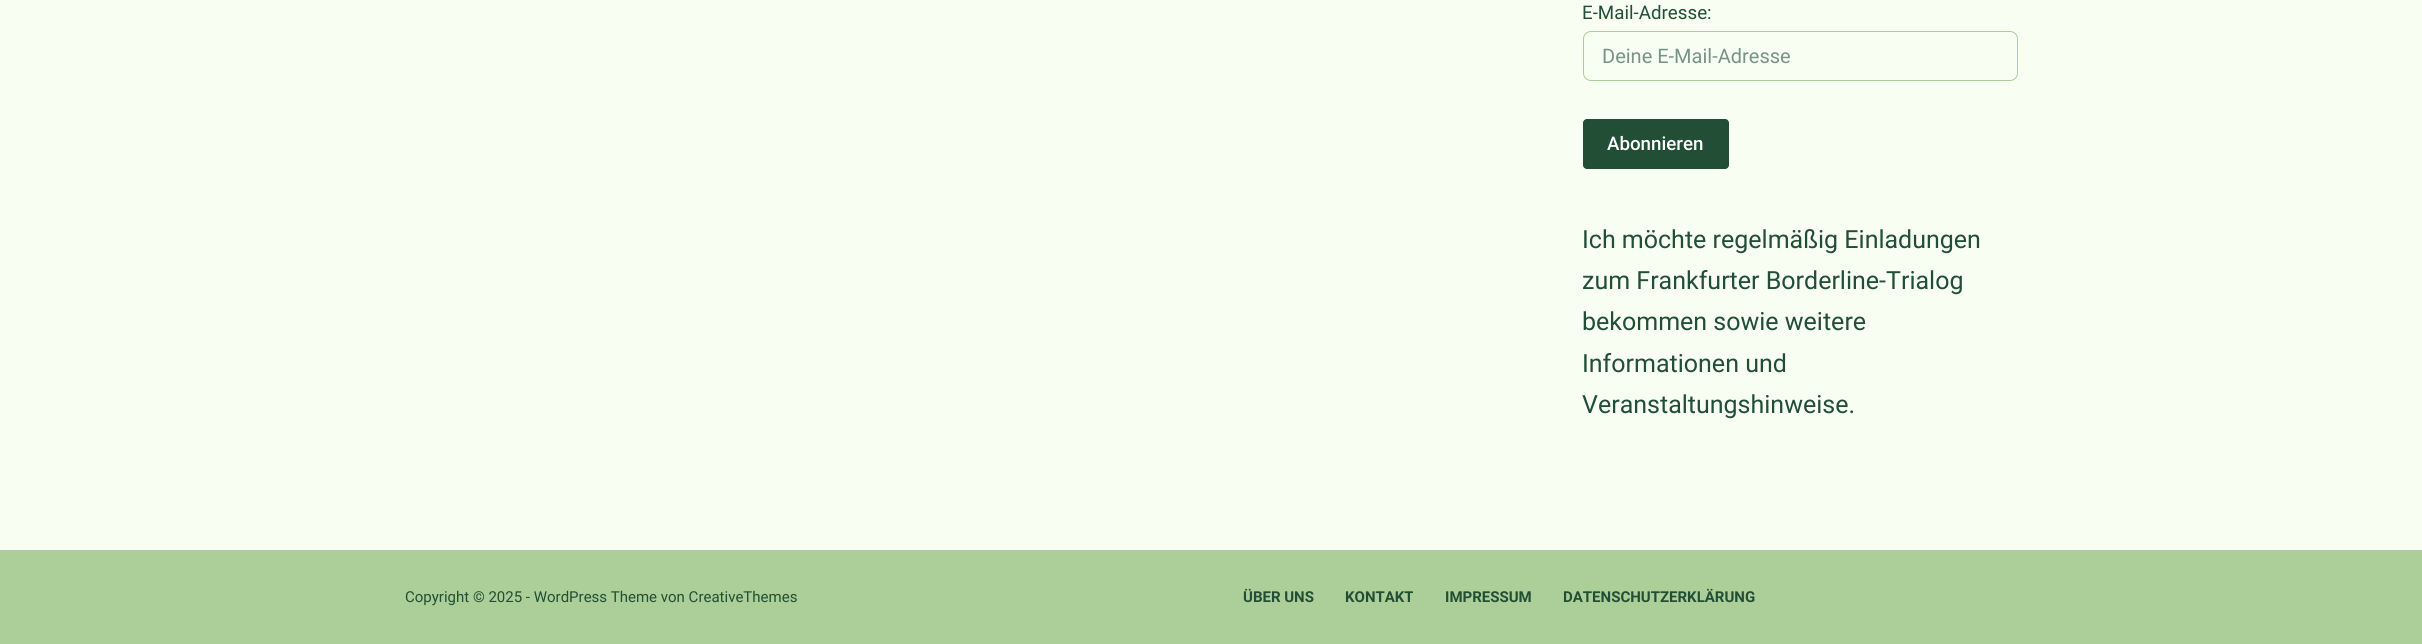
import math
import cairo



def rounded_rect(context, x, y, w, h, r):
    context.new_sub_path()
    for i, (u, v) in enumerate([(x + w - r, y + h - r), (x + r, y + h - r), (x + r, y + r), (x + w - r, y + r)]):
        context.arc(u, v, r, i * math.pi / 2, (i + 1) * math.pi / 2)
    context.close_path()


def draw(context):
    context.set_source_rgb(248 / 255, 1, 242 / 255)
    context.paint()
    rounded_rect(context, 1583.5, 31.5, 434, 49, 7.5)
    context.set_source_rgb(172 / 255, 206 / 255, 152 / 255)
    context.set_line_width(1)
    context.stroke()
    context.set_source_rgb(33 / 255, 78 / 255, 52 / 255)
    rounded_rect(context, 1583, 119, 146, 50, 4)
    context.fill()
    context.set_source_rgb(172 / 255, 206 / 255, 152 / 255)
    context.rectangle(0, 550, 2422, 94)
    context.fill()
    context.select_font_face("Roboto")
    context.set_font_size(18.75)
    context.set_source_rgb(33 / 255, 78 / 255, 52 / 255)
    context.move_to(1582, 19)
    context.show_text("E-Mail-Adresse:")
    context.set_font_size(20)
    context.set_source_rgb(119 / 255, 149 / 255, 128 / 255)
    context.move_to(1602, 63)
    context.show_text("Deine E-Mail-Adresse")
    context.select_font_face("Roboto Medium")
    context.set_font_size(18.75)
    context.set_source_rgb(1, 1, 1)
    context.move_to(1607, 150)
    context.show_text("Abonnieren")
    context.select_font_face("Roboto")
    context.set_font_size(25)
    context.set_source_rgb(33 / 255, 78 / 255, 52 / 255)
    context.move_to(1582, 248)
    context.show_text("Ich möchte regelmäßig Einladungen")
    context.move_to(1582, 289)
    context.show_text("zum Frankfurter Borderline-Trialog")
    context.move_to(1582, 330)
    context.show_text("bekommen sowie weitere")
    context.move_to(1582, 372)
    context.show_text("Informationen und")
    context.move_to(1582, 413)
    context.show_text("Veranstaltungshinweise.")
    context.set_font_size(15)
    context.move_to(405, 602)
    context.show_text("Copyright © 2025 - WordPress Theme von CreativeThemes")
    context.select_font_face("Roboto", cairo.FontSlant.NORMAL, cairo.FontWeight.BOLD)
    context.move_to(1243, 602)
    context.show_text("ÜBER UNS")
    context.move_to(1345, 602)
    context.show_text("KONTAKT")
    context.move_to(1445, 602)
    context.show_text("IMPRESSUM")
    context.move_to(1563, 602)
    context.show_text("DATENSCHUTZERKLÄRUNG")


surface = cairo.ImageSurface(cairo.Format.RGB24, 2422, 644)
context = cairo.Context(surface)
options = cairo.FontOptions()
options.set_hint_metrics(cairo.HintMetrics.OFF)
options.set_hint_style(cairo.HintStyle.NONE)
context.set_font_options(options)
context.set_miter_limit(4)
draw(context)
surface.write_to_png("out.png")
